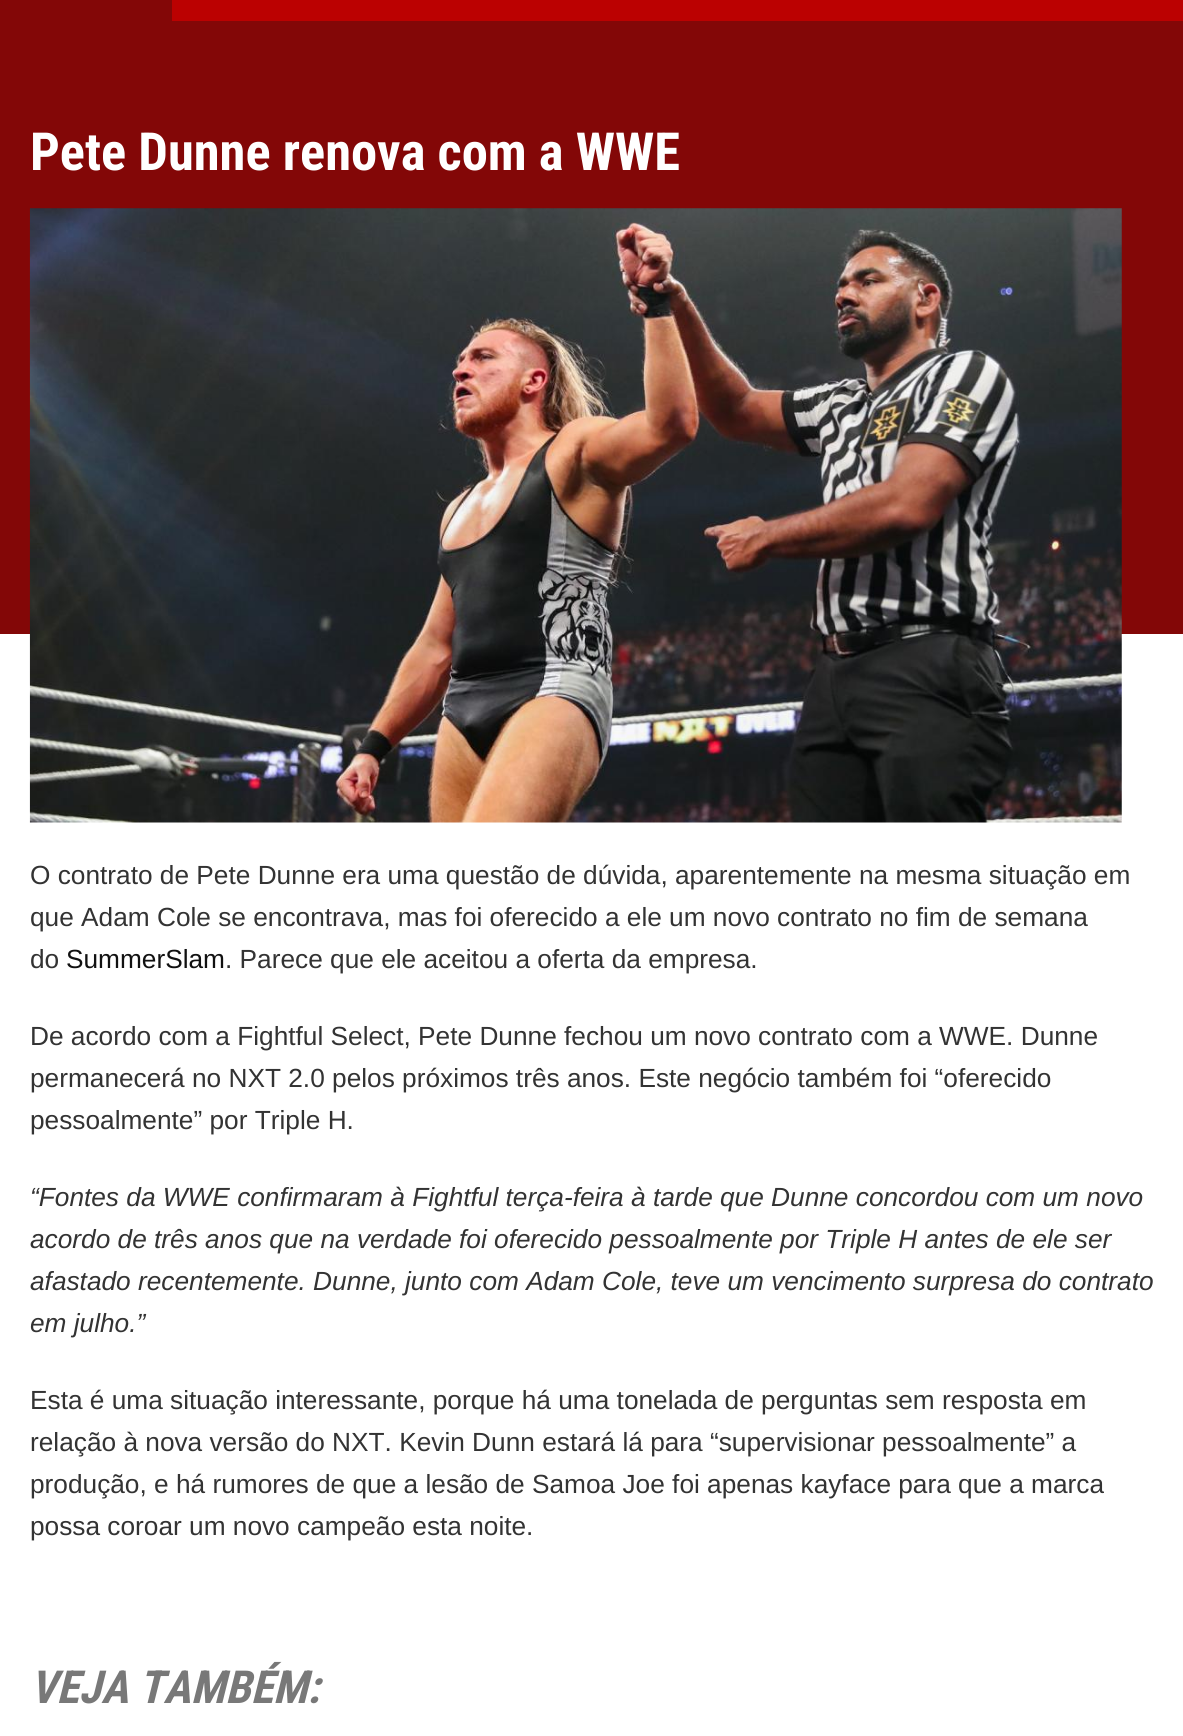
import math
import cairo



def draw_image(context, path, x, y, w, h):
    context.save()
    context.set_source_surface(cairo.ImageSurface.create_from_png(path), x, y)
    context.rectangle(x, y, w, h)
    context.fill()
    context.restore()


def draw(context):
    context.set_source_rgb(1, 1, 1)
    context.paint()
    context.set_source_rgb(187 / 255, 1 / 255, 1 / 255)
    context.rectangle(172, 0, 1011, 21)
    context.fill()
    context.set_source_rgb(131 / 255, 7 / 255, 7 / 255)
    context.rectangle(0, 0, 172, 21)
    context.fill()
    context.rectangle(0, 21, 1183, 613)
    context.fill()
    draw_image(context, "images/1.png", 29, 208, 1093, 615)
    context.select_font_face("Roboto Condensed", cairo.FontSlant.NORMAL, cairo.FontWeight.BOLD)
    context.set_font_size(52.5)
    context.set_source_rgb(1, 1, 1)
    context.move_to(30, 170)
    context.show_text("Pete Dunne renova com a WWE")
    context.select_font_face("Liberation Sans")
    context.set_font_size(26.25)
    context.set_source_rgb(51 / 255, 51 / 255, 51 / 255)
    context.move_to(30, 884)
    context.show_text("O contrato de Pete Dunne era uma questão de dúvida, aparentemente na mesma situação em")
    context.move_to(30, 926)
    context.show_text("que Adam Cole se encontrava, mas foi oferecido a ele um novo contrato no fim de semana")
    context.move_to(30, 968)
    context.show_text("do")
    context.set_source_rgb(17 / 255, 17 / 255, 17 / 255)
    context.move_to(66, 968)
    context.show_text("SummerSlam")
    context.set_source_rgb(51 / 255, 51 / 255, 51 / 255)
    context.move_to(225, 968)
    context.show_text(". Parece que ele aceitou a oferta da empresa.")
    context.move_to(30, 1045)
    context.show_text("De acordo com a Fightful Select, Pete Dunne fechou um novo contrato com a WWE. Dunne")
    context.move_to(30, 1087)
    context.show_text("permanecerá no NXT 2.0 pelos próximos três anos. Este negócio também foi “oferecido")
    context.move_to(30, 1129)
    context.show_text("pessoalmente” por Triple H.")
    context.select_font_face("Liberation Sans", cairo.FontSlant.ITALIC)
    context.move_to(30, 1206)
    context.show_text("“Fontes da WWE confirmaram à Fightful terça-feira à tarde que Dunne concordou com um novo")
    context.move_to(30, 1248)
    context.show_text("acordo de três anos que na verdade foi oferecido pessoalmente por Triple H antes de ele ser")
    context.move_to(30, 1290)
    context.show_text("afastado recentemente. Dunne, junto com Adam Cole, teve um vencimento surpresa do contrato")
    context.move_to(30, 1332)
    context.show_text("em julho.”")
    context.select_font_face("Liberation Sans")
    context.move_to(30, 1409)
    context.show_text("Esta é uma situação interessante, porque há uma tonelada de perguntas sem resposta em")
    context.move_to(30, 1451)
    context.show_text("relação à nova versão do NXT. Kevin Dunn estará lá para “supervisionar pessoalmente” a")
    context.move_to(30, 1493)
    context.show_text("produção, e há rumores de que a lesão de Samoa Joe foi apenas kayface para que a marca")
    context.move_to(30, 1535)
    context.show_text("possa coroar um novo campeão esta noite.")
    context.select_font_face("Roboto Condensed", cairo.FontSlant.ITALIC, cairo.FontWeight.BOLD)
    context.set_font_size(45.5)
    context.set_source_rgb(120 / 255, 120 / 255, 120 / 255)
    context.move_to(30, 1703)
    context.show_text("VEJA TAMBÉM:")


surface = cairo.ImageSurface(cairo.Format.RGB24, 1183, 1736)
context = cairo.Context(surface)
options = cairo.FontOptions()
options.set_hint_metrics(cairo.HintMetrics.OFF)
options.set_hint_style(cairo.HintStyle.NONE)
context.set_font_options(options)
context.set_miter_limit(4)
draw(context)
surface.write_to_png("out.png")
